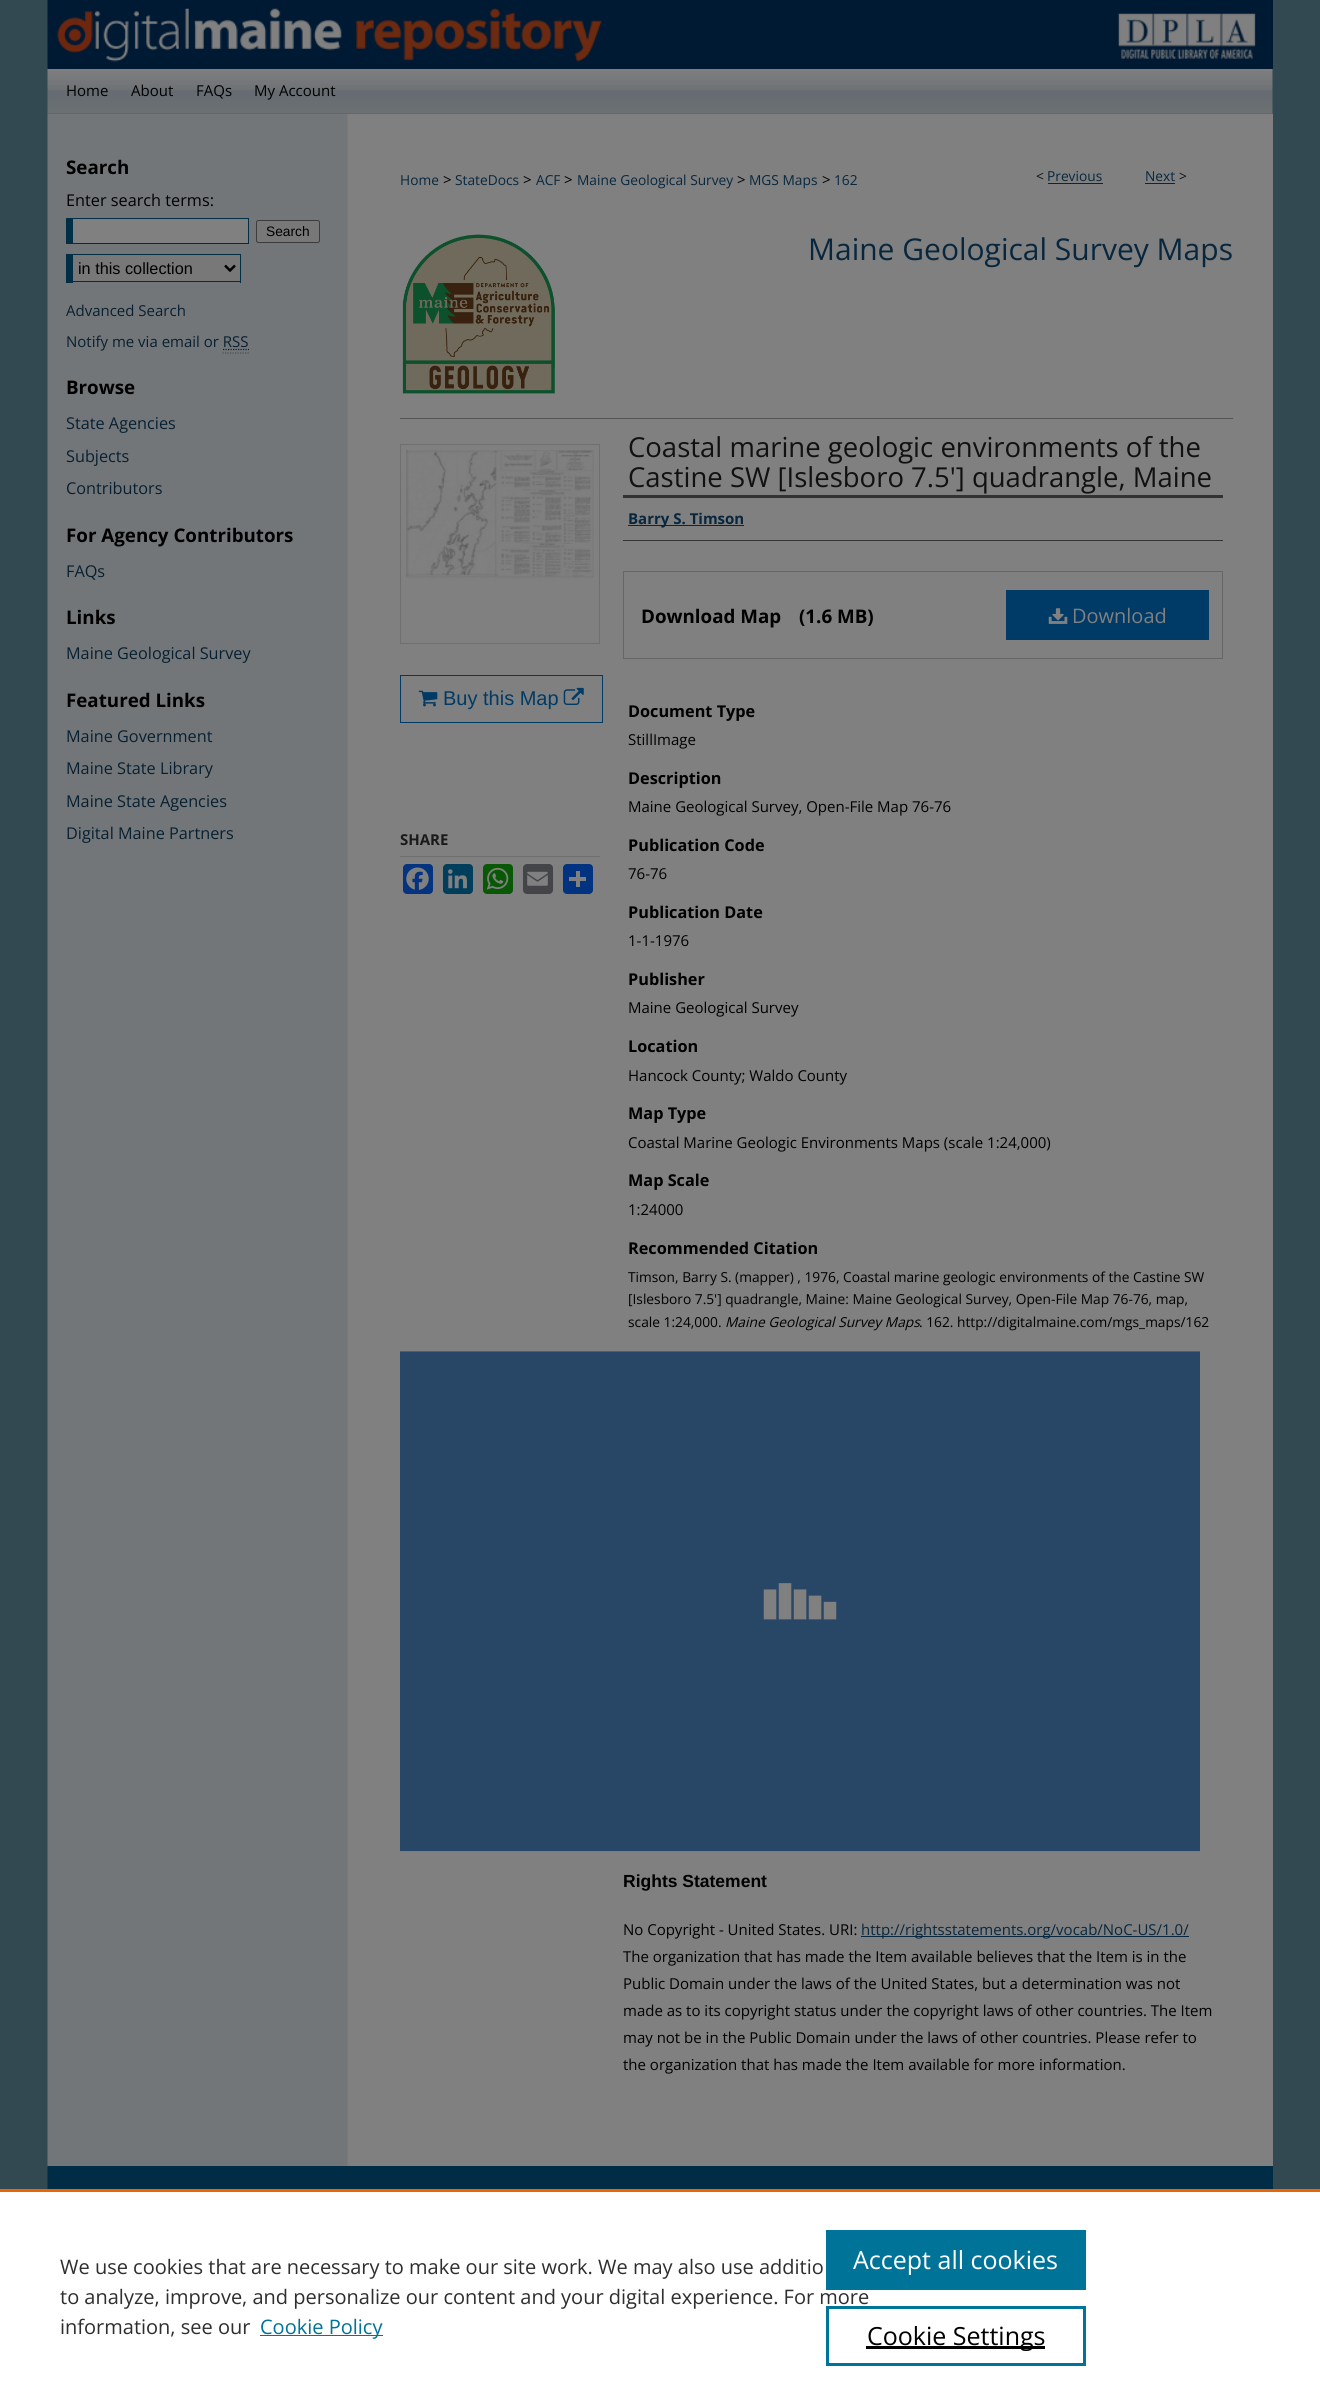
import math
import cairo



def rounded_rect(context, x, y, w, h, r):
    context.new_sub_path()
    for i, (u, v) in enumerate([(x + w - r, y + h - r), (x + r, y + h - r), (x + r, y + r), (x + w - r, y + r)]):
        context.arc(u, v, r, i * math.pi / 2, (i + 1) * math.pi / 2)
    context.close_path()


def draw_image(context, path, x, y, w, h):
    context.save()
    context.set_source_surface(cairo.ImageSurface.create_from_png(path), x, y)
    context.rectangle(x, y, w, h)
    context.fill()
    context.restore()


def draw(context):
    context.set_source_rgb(50 / 255, 73 / 255, 82 / 255)
    context.paint()
    draw_image(context, "images/4.png", 47, 113, 1226, 2054)
    draw_image(context, "images/3.png", 47, 68, 1226, 46)
    context.set_source_rgb(0, 26 / 255, 51 / 255)
    context.rectangle(48, 0, 1225, 69)
    context.fill()
    draw_image(context, "images/1.png", 47, 0, 1209, 69)
    draw_image(context, "images/2.png", 1147, 14, 86, 45)
    context.set_source_rgb(128 / 255, 128 / 255, 128 / 255)
    context.rectangle(73, 219, 175, 24)
    context.fill()
    context.set_source_rgb(0, 46 / 255, 69 / 255)
    context.rectangle(66, 218, 183, 1)
    context.fill()
    context.rectangle(248, 218, 1, 26)
    context.fill()
    context.rectangle(66, 243, 183, 1)
    context.fill()
    context.rectangle(66, 218, 7, 26)
    context.fill()
    context.set_source_rgb(120 / 255, 120 / 255, 120 / 255)
    rounded_rect(context, 256.5, 220.5, 63, 22, 2)
    context.fill_preserve()
    context.set_source_rgb(59 / 255, 59 / 255, 59 / 255)
    context.set_line_width(1)
    context.stroke()
    context.set_source_rgb(120 / 255, 120 / 255, 120 / 255)
    context.rectangle(73, 255, 167, 26)
    context.fill()
    context.set_source_rgb(0, 46 / 255, 69 / 255)
    context.rectangle(66, 254, 175, 1)
    context.fill()
    context.rectangle(240, 254, 1, 29)
    context.fill()
    context.rectangle(66, 281, 175, 1)
    context.fill()
    context.rectangle(66, 254, 7, 29)
    context.fill()
    context.new_path()
    context.move_to(225, 265.5)
    context.line_to(230, 270.5)
    context.line_to(235, 265.5)
    context.set_source_rgb(0, 0, 0)
    context.set_line_width(2.5)
    context.stroke()
    context.new_path()
    context.move_to(223, 349.5)
    context.line_to(249, 349.5)
    context.set_source_rgb(7 / 255, 32 / 255, 49 / 255)
    context.set_line_width(1.2)
    context.set_dash([1.25, 1.25])
    context.stroke()
    context.new_path()
    context.move_to(222.5, 353)
    context.line_to(249, 353)
    context.set_source_rgb(77 / 255, 77 / 255, 77 / 255)
    context.stroke()
    context.set_source_rgb(128 / 255, 128 / 255, 128 / 255)
    context.rectangle(1272, 114, 1, 2052)
    context.fill()
    context.set_source_rgb(8 / 255, 39 / 255, 62 / 255)
    context.rectangle(1048, 183, 55, 1)
    context.fill()
    context.rectangle(1145, 183, 30, 1)
    context.fill()
    draw_image(context, "images/5.png", 402, 234, 153, 160)
    context.rectangle(400.5, 444.5, 199, 199)
    context.set_source_rgb(111 / 255, 111 / 255, 111 / 255)
    context.set_line_width(1)
    context.set_dash([])
    context.stroke()
    draw_image(context, "images/6.png", 406, 450, 188, 130)
    context.rectangle(400.5, 675.5, 202, 47)
    context.set_source_rgb(0, 58 / 255, 102 / 255)
    context.stroke()
    draw_image(context, "images/7.png", 418, 690, 20, 17)
    draw_image(context, "images/8.png", 563, 687, 21, 18)
    context.set_source_rgb(111 / 255, 111 / 255, 111 / 255)
    context.rectangle(400, 856, 200, 1)
    context.fill()
    context.set_source_rgb(4 / 255, 51 / 255, 128 / 255)
    rounded_rect(context, 403, 864, 30, 30, 4)
    context.fill()
    draw_image(context, "images/9.png", 406, 867, 23, 23)
    context.set_source_rgb(0, 62 / 255, 91 / 255)
    rounded_rect(context, 443, 864, 30, 30, 4)
    context.fill()
    draw_image(context, "images/10.png", 448, 869, 19, 20)
    context.set_source_rgb(9 / 255, 88 / 255, 5 / 255)
    rounded_rect(context, 483, 864, 30, 30, 4)
    context.fill()
    draw_image(context, "images/11.png", 486, 867, 23, 23)
    context.set_source_rgb(68 / 255, 69 / 255, 72 / 255)
    rounded_rect(context, 523, 864, 30, 30, 4)
    context.fill()
    draw_image(context, "images/12.png", 527, 871, 21, 15)
    context.set_source_rgb(1 / 255, 51 / 255, 128 / 255)
    rounded_rect(context, 563, 864, 30, 30, 4)
    context.fill()
    context.set_source_rgb(128 / 255, 128 / 255, 128 / 255)
    context.rectangle(576, 871, 4, 16)
    context.fill()
    context.rectangle(569, 877, 17, 4)
    context.fill()
    context.set_source_rgb(85 / 255, 85 / 255, 85 / 255)
    context.rectangle(400, 418, 833, 1)
    context.fill()
    context.set_source_rgb(51 / 255, 51 / 255, 51 / 255)
    context.rectangle(623, 495, 600, 3)
    context.fill()
    context.rectangle(623, 540, 600, 1)
    context.fill()
    context.set_source_rgb(8 / 255, 39 / 255, 62 / 255)
    context.rectangle(628, 525, 116, 1)
    context.fill()
    context.rectangle(623.5, 571.5, 599, 87)
    context.set_source_rgb(102 / 255, 102 / 255, 102 / 255)
    context.stroke()
    context.set_source_rgb(0, 58 / 255, 102 / 255)
    context.rectangle(1006, 590, 203, 50)
    context.fill()
    draw_image(context, "images/13.png", 1048, 608, 20, 16)
    draw_image(context, "images/14.png", 400, 1351, 800, 501)
    context.set_source_rgb(8 / 255, 39 / 255, 62 / 255)
    context.rectangle(861, 1936, 328, 1)
    context.fill()
    context.set_source_rgb(0, 45 / 255, 69 / 255)
    context.rectangle(48, 2166, 1225, 23)
    context.fill()
    draw_image(context, "images/15.png", 47, 2166, 277, 23)
    context.set_source_rgb(1, 1, 1)
    context.rectangle(0, 2192, 1320, 209)
    context.fill()
    context.set_source_rgb(235 / 255, 101 / 255, 0)
    context.rectangle(0, 2189, 1320, 3)
    context.fill()
    context.set_source_rgb(0, 115 / 255, 152 / 255)
    context.rectangle(260, 2335, 123, 1)
    context.fill()
    context.select_font_face("Open Sans")
    context.set_font_size(15)
    context.set_source_rgb(0, 0, 0)
    context.move_to(66, 96)
    context.show_text("Home")
    context.move_to(131, 96)
    context.show_text("About")
    context.move_to(196, 96)
    context.show_text("FAQs")
    context.move_to(254, 96)
    context.show_text("My Account")
    context.select_font_face("Open Sans", cairo.FontSlant.NORMAL, cairo.FontWeight.BOLD)
    context.set_font_size(18.75)
    context.move_to(66, 174)
    context.show_text("Search")
    context.select_font_face("Open Sans")
    context.set_font_size(16.25)
    context.move_to(66, 206)
    context.show_text("Enter search terms:")
    context.select_font_face("Liberation Sans")
    context.set_font_size(13.75)
    context.move_to(266, 236)
    context.show_text("Search")
    context.set_font_size(16.25)
    context.move_to(78, 274)
    context.show_text("in this collection")
    context.select_font_face("Open Sans")
    context.set_font_size(15)
    context.set_source_rgb(7 / 255, 32 / 255, 49 / 255)
    context.move_to(66, 316)
    context.show_text("Advanced Search")
    context.move_to(66, 347)
    context.show_text("Notify me via email or RSS")
    context.select_font_face("Open Sans", cairo.FontSlant.NORMAL, cairo.FontWeight.BOLD)
    context.set_font_size(18.75)
    context.set_source_rgb(0, 0, 0)
    context.move_to(66, 394)
    context.show_text("Browse")
    context.select_font_face("Open Sans")
    context.set_font_size(16.25)
    context.set_source_rgb(7 / 255, 32 / 255, 49 / 255)
    context.move_to(66, 429)
    context.show_text("State Agencies")
    context.move_to(66, 462)
    context.show_text("Subjects")
    context.move_to(66, 494)
    context.show_text("Contributors")
    context.select_font_face("Open Sans", cairo.FontSlant.NORMAL, cairo.FontWeight.BOLD)
    context.set_font_size(18.75)
    context.set_source_rgb(0, 0, 0)
    context.move_to(66, 542)
    context.show_text("For Agency Contributors")
    context.select_font_face("Open Sans")
    context.set_font_size(16.25)
    context.set_source_rgb(7 / 255, 32 / 255, 49 / 255)
    context.move_to(66, 577)
    context.show_text("FAQs")
    context.select_font_face("Open Sans", cairo.FontSlant.NORMAL, cairo.FontWeight.BOLD)
    context.set_font_size(18.75)
    context.set_source_rgb(0, 0, 0)
    context.move_to(66, 624)
    context.show_text("Links")
    context.select_font_face("Open Sans")
    context.set_font_size(16.25)
    context.set_source_rgb(7 / 255, 32 / 255, 49 / 255)
    context.move_to(66, 659)
    context.show_text("Maine Geological Survey")
    context.select_font_face("Open Sans", cairo.FontSlant.NORMAL, cairo.FontWeight.BOLD)
    context.set_font_size(18.75)
    context.set_source_rgb(0, 0, 0)
    context.move_to(66, 707)
    context.show_text("Featured Links")
    context.select_font_face("Open Sans")
    context.set_font_size(16.25)
    context.set_source_rgb(7 / 255, 32 / 255, 49 / 255)
    context.move_to(66, 742)
    context.show_text("Maine Government")
    context.move_to(66, 774)
    context.show_text("Maine State Library")
    context.move_to(66, 807)
    context.show_text("Maine State Agencies")
    context.move_to(66, 839)
    context.show_text("Digital Maine Partners")
    context.set_font_size(13.75)
    context.set_source_rgb(8 / 255, 39 / 255, 62 / 255)
    context.move_to(400, 185)
    context.show_text("Home")
    context.set_font_size(15)
    context.set_source_rgb(0, 0, 0)
    context.move_to(443, 185)
    context.show_text(">")
    context.set_font_size(13.75)
    context.set_source_rgb(8 / 255, 39 / 255, 62 / 255)
    context.move_to(455, 185)
    context.show_text("StateDocs")
    context.set_font_size(15)
    context.set_source_rgb(0, 0, 0)
    context.move_to(523, 185)
    context.show_text(">")
    context.set_font_size(13.75)
    context.set_source_rgb(8 / 255, 39 / 255, 62 / 255)
    context.move_to(536, 185)
    context.show_text("ACF")
    context.set_font_size(15)
    context.set_source_rgb(0, 0, 0)
    context.move_to(564, 185)
    context.show_text(">")
    context.set_font_size(13.75)
    context.set_source_rgb(8 / 255, 39 / 255, 62 / 255)
    context.move_to(577, 185)
    context.show_text("Maine Geological Survey")
    context.set_font_size(15)
    context.set_source_rgb(0, 0, 0)
    context.move_to(737, 185)
    context.show_text(">")
    context.set_font_size(13.75)
    context.set_source_rgb(8 / 255, 39 / 255, 62 / 255)
    context.move_to(749, 185)
    context.show_text("MGS Maps")
    context.set_font_size(15)
    context.set_source_rgb(0, 0, 0)
    context.move_to(822, 185)
    context.show_text(">")
    context.set_font_size(13.75)
    context.set_source_rgb(8 / 255, 39 / 255, 62 / 255)
    context.move_to(834, 185)
    context.show_text("162")
    context.set_source_rgb(17 / 255, 17 / 255, 17 / 255)
    context.move_to(1036, 181)
    context.show_text("<")
    context.set_source_rgb(8 / 255, 39 / 255, 62 / 255)
    context.move_to(1047, 181)
    context.show_text("Previous")
    context.move_to(1145, 181)
    context.show_text("Next")
    context.set_source_rgb(17 / 255, 17 / 255, 17 / 255)
    context.move_to(1179, 181)
    context.show_text(">")
    context.set_font_size(30)
    context.set_source_rgb(8 / 255, 39 / 255, 62 / 255)
    context.move_to(808, 260)
    context.show_text("Maine Geological Survey Maps")
    context.select_font_face("Liberation Sans")
    context.set_font_size(20)
    context.set_source_rgb(0, 58 / 255, 102 / 255)
    context.move_to(443, 705)
    context.show_text("Buy this Map")
    context.select_font_face("Open Sans", cairo.FontSlant.NORMAL, cairo.FontWeight.BOLD)
    context.set_font_size(15)
    context.set_source_rgb(26 / 255, 26 / 255, 26 / 255)
    context.move_to(400, 845)
    context.show_text("SHARE")
    context.select_font_face("Open Sans")
    context.set_font_size(27.5)
    context.set_source_rgb(17 / 255, 17 / 255, 17 / 255)
    context.move_to(628, 457)
    context.show_text("Coastal marine geologic environments of the")
    context.move_to(628, 487)
    context.show_text("Castine SW [Islesboro 7.5'] quadrangle, Maine")
    context.select_font_face("Open Sans", cairo.FontSlant.NORMAL, cairo.FontWeight.BOLD)
    context.set_font_size(15)
    context.set_source_rgb(8 / 255, 39 / 255, 62 / 255)
    context.move_to(628, 524)
    context.show_text("Barry S. Timson")
    context.set_font_size(18.75)
    context.set_source_rgb(0, 0, 0)
    context.move_to(641, 623)
    context.show_text("Download Map")
    context.move_to(799, 623)
    context.show_text("(1.6 MB)")
    context.select_font_face("Open Sans")
    context.set_font_size(20)
    context.set_source_rgb(128 / 255, 128 / 255, 128 / 255)
    context.move_to(1072, 623)
    context.show_text("Download")
    context.select_font_face("Open Sans", cairo.FontSlant.NORMAL, cairo.FontWeight.BOLD)
    context.set_font_size(16.25)
    context.set_source_rgb(0, 0, 0)
    context.move_to(628, 717)
    context.show_text("Document Type")
    context.select_font_face("Open Sans")
    context.set_font_size(15)
    context.move_to(628, 745)
    context.show_text("StillImage")
    context.select_font_face("Open Sans", cairo.FontSlant.NORMAL, cairo.FontWeight.BOLD)
    context.set_font_size(16.25)
    context.move_to(628, 784)
    context.show_text("Description")
    context.select_font_face("Open Sans")
    context.set_font_size(15)
    context.move_to(628, 812)
    context.show_text("Maine Geological Survey, Open-File Map 76-76")
    context.select_font_face("Open Sans", cairo.FontSlant.NORMAL, cairo.FontWeight.BOLD)
    context.set_font_size(16.25)
    context.move_to(628, 851)
    context.show_text("Publication Code")
    context.select_font_face("Open Sans")
    context.set_font_size(15)
    context.move_to(628, 879)
    context.show_text("76-76")
    context.select_font_face("Open Sans", cairo.FontSlant.NORMAL, cairo.FontWeight.BOLD)
    context.set_font_size(16.25)
    context.move_to(628, 918)
    context.show_text("Publication Date")
    context.select_font_face("Open Sans")
    context.set_font_size(15)
    context.move_to(628, 946)
    context.show_text("1-1-1976")
    context.select_font_face("Open Sans", cairo.FontSlant.NORMAL, cairo.FontWeight.BOLD)
    context.set_font_size(16.25)
    context.move_to(628, 985)
    context.show_text("Publisher")
    context.select_font_face("Open Sans")
    context.set_font_size(15)
    context.move_to(628, 1013)
    context.show_text("Maine Geological Survey")
    context.select_font_face("Open Sans", cairo.FontSlant.NORMAL, cairo.FontWeight.BOLD)
    context.set_font_size(16.25)
    context.move_to(628, 1052)
    context.show_text("Location")
    context.select_font_face("Open Sans")
    context.set_font_size(15)
    context.move_to(628, 1081)
    context.show_text("Hancock County; Waldo County")
    context.select_font_face("Open Sans", cairo.FontSlant.NORMAL, cairo.FontWeight.BOLD)
    context.set_font_size(16.25)
    context.move_to(628, 1119)
    context.show_text("Map Type")
    context.select_font_face("Open Sans")
    context.set_font_size(15)
    context.move_to(628, 1148)
    context.show_text("Coastal Marine Geologic Environments Maps (scale 1:24,000)")
    context.select_font_face("Open Sans", cairo.FontSlant.NORMAL, cairo.FontWeight.BOLD)
    context.set_font_size(16.25)
    context.move_to(628, 1186)
    context.show_text("Map Scale")
    context.select_font_face("Open Sans")
    context.set_font_size(15)
    context.move_to(628, 1215)
    context.show_text("1:24000")
    context.select_font_face("Open Sans", cairo.FontSlant.NORMAL, cairo.FontWeight.BOLD)
    context.set_font_size(16.25)
    context.move_to(628, 1254)
    context.show_text("Recommended Citation")
    context.select_font_face("Open Sans")
    context.set_font_size(13.75)
    context.move_to(628, 1282)
    context.show_text("Timson, Barry S. (mapper) , 1976, Coastal marine geologic environments of the Castine SW")
    context.move_to(628, 1304)
    context.show_text("[Islesboro 7.5'] quadrangle, Maine: Maine Geological Survey, Open-File Map 76-76, map,")
    context.move_to(628, 1327)
    context.show_text("scale 1:24,000.")
    context.select_font_face("Open Sans", cairo.FontSlant.ITALIC)
    context.move_to(725, 1327)
    context.show_text("Maine Geological Survey Maps")
    context.select_font_face("Open Sans")
    context.move_to(919, 1327)
    context.show_text(". 162. http://digitalmaine.com/mgs_maps/162")
    context.select_font_face("Liberation Sans", cairo.FontSlant.NORMAL, cairo.FontWeight.BOLD)
    context.set_font_size(17.5)
    context.move_to(623, 1887)
    context.show_text("Rights Statement")
    context.select_font_face("Open Sans")
    context.set_font_size(15)
    context.move_to(623, 1935)
    context.show_text("No Copyright - United States. URI:")
    context.set_source_rgb(8 / 255, 39 / 255, 62 / 255)
    context.move_to(861, 1935)
    context.show_text("http://rightsstatements.org/vocab/NoC-US/1.0/")
    context.set_source_rgb(0, 0, 0)
    context.move_to(623, 1962)
    context.show_text("The organization that has made the Item available believes that the Item is in the")
    context.move_to(623, 1989)
    context.show_text("Public Domain under the laws of the United States, but a determination was not")
    context.move_to(623, 2016)
    context.show_text("made as to its copyright status under the copyright laws of other countries. The Item")
    context.move_to(623, 2043)
    context.show_text("may not be in the Public Domain under the laws of other countries. Please refer to")
    context.move_to(623, 2070)
    context.show_text("the organization that has made the Item available for more information.")
    context.set_font_size(20)
    context.set_source_rgb(46 / 255, 46 / 255, 46 / 255)
    context.move_to(60, 2274)
    context.show_text("We use cookies that are necessary to make our site work. We may also use additio")
    context.move_to(60, 2304)
    context.show_text("to analyze, improve, and personalize our content and your digital experience. For more")
    context.move_to(60, 2334)
    context.show_text("information, see our")
    context.set_source_rgb(0, 115 / 255, 152 / 255)
    context.move_to(260, 2334)
    context.show_text("Cookie Policy")
    context.rectangle(826, 2230, 260, 60)
    context.fill()
    context.set_font_size(25)
    context.set_source_rgb(1, 1, 1)
    context.move_to(853, 2269)
    context.show_text("Accept all cookies")
    context.rectangle(827.5, 2307.5, 257, 57)
    context.set_source_rgb(0, 115 / 255, 152 / 255)
    context.set_line_width(3)
    context.stroke()
    context.set_source_rgb(0, 0, 0)
    context.rectangle(866, 2346, 179, 3)
    context.fill()
    context.move_to(867, 2345)
    context.show_text("Cookie Settings")


surface = cairo.ImageSurface(cairo.Format.RGB24, 1320, 2401)
context = cairo.Context(surface)
options = cairo.FontOptions()
options.set_hint_metrics(cairo.HintMetrics.OFF)
options.set_hint_style(cairo.HintStyle.NONE)
context.set_font_options(options)
context.set_miter_limit(4)
draw(context)
surface.write_to_png("out.png")
